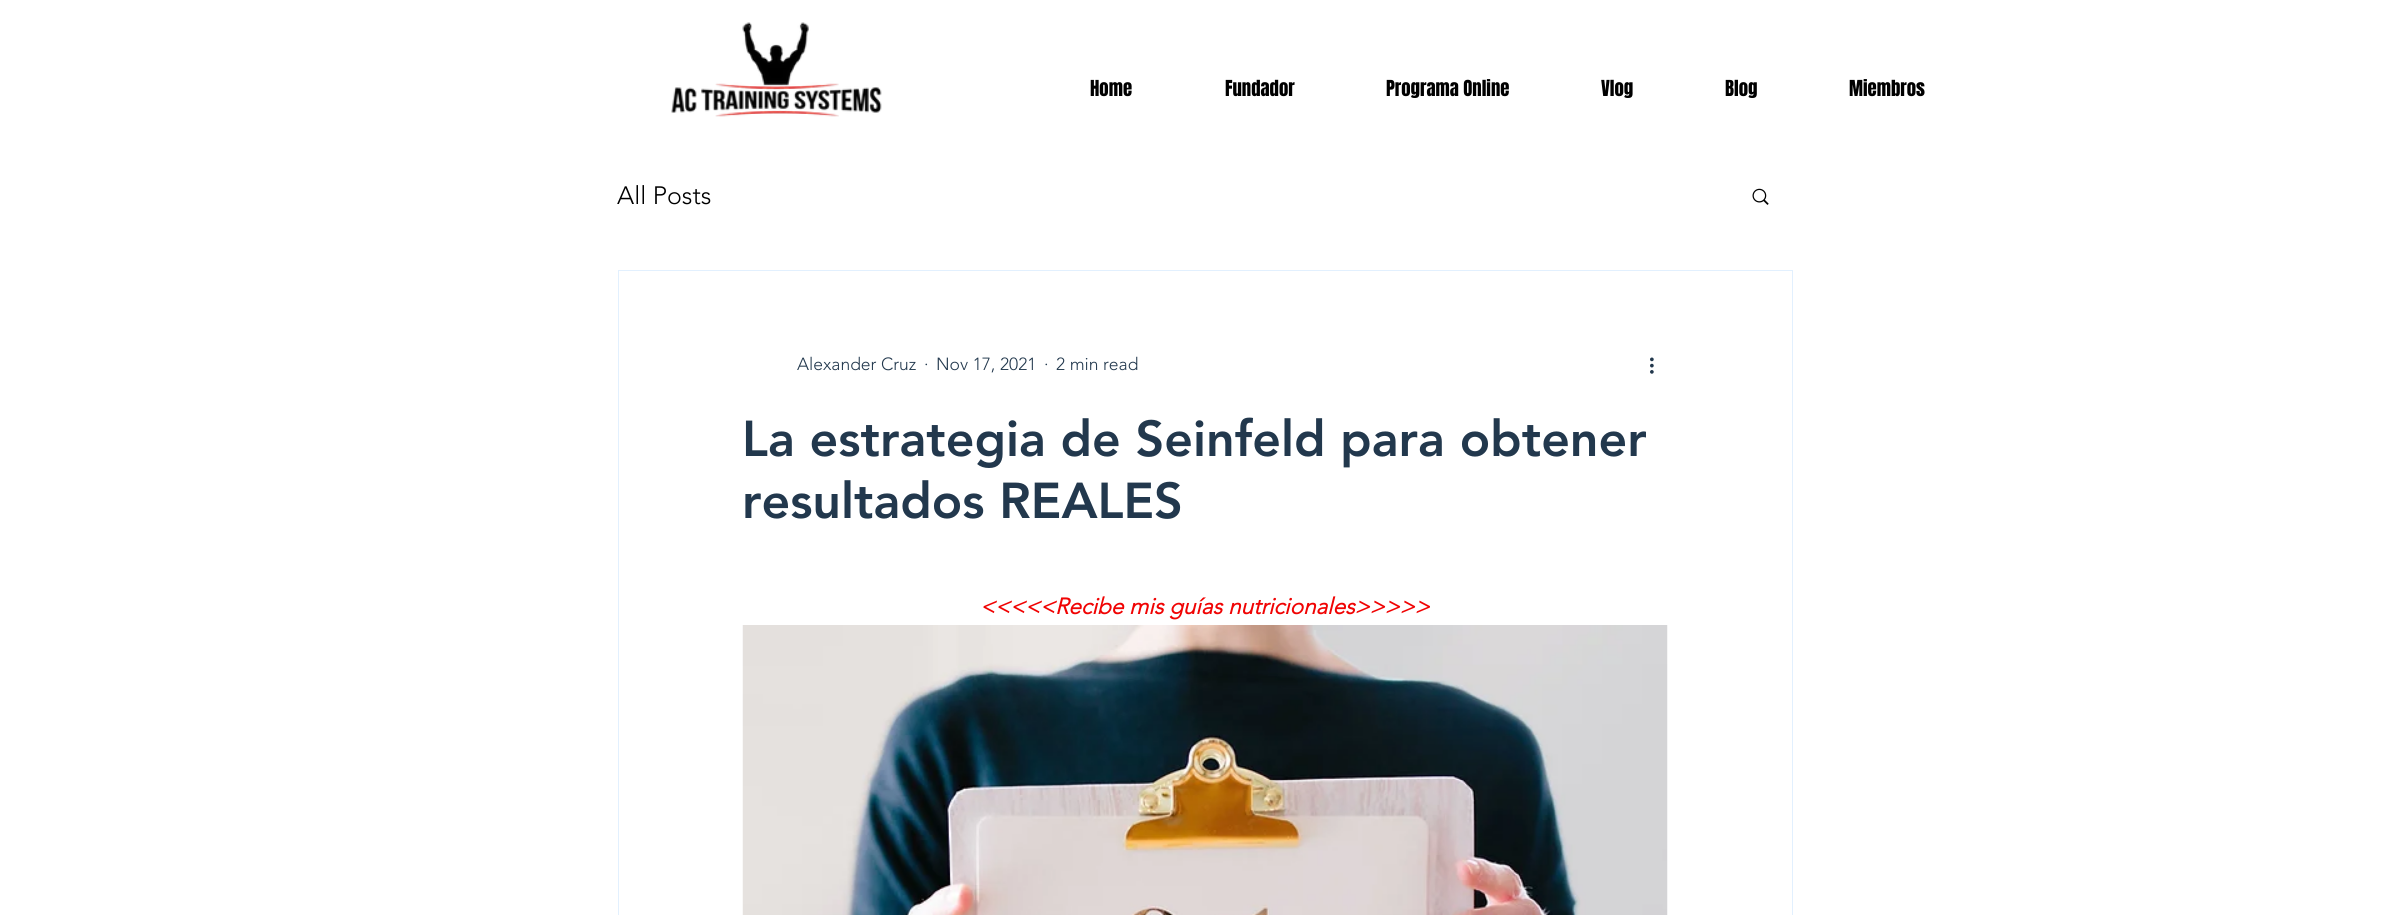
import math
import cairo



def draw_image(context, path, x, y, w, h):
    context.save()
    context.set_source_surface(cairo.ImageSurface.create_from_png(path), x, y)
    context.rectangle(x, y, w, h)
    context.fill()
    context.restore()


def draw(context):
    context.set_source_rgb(1, 1, 1)
    context.paint()
    draw_image(context, "images/1.png", 671, 22, 211, 95)
    draw_image(context, "images/2.png", 1752, 188, 17, 17)
    context.rectangle(618.5, 270.5, 1174, 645)
    context.set_source_rgb(226 / 255, 240 / 255, 254 / 255)
    context.set_line_width(1)
    context.stroke()
    draw_image(context, "images/3.png", 1650, 357, 4, 17)
    draw_image(context, "images/4.png", 742, 625, 926, 290)
    context.select_font_face("Anton")
    context.set_font_size(18.75)
    context.set_source_rgb(0, 0, 0)
    context.move_to(1090, 96)
    context.show_text("Home")
    context.move_to(1225, 96)
    context.show_text("Fundador")
    context.move_to(1386, 96)
    context.show_text("Programa Online")
    context.move_to(1601, 96)
    context.show_text("Vlog")
    context.move_to(1725, 96)
    context.show_text("Blog")
    context.move_to(1849, 96)
    context.show_text("Miembros")
    context.select_font_face("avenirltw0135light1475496 Light")
    context.set_font_size(25)
    context.move_to(617, 204)
    context.show_text("All Posts")
    context.set_font_size(17.5)
    context.set_source_rgb(34 / 255, 56 / 255, 77 / 255)
    context.move_to(797, 370)
    context.show_text("Alexander Cruz")
    context.move_to(924, 370)
    context.show_text("·")
    context.move_to(936, 370)
    context.show_text("Nov 17, 2021")
    context.move_to(1044, 370)
    context.show_text("·")
    context.move_to(1056, 370)
    context.show_text("2 min read")
    context.select_font_face("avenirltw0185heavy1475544 Black")
    context.set_font_size(50)
    context.move_to(742, 456)
    context.show_text("La estrategia de Seinfeld para obtener")
    context.move_to(742, 518)
    context.show_text("resultados REALES")
    context.select_font_face("avenirltw0135light1475496", cairo.FontSlant.ITALIC, cairo.FontWeight.BOLD)
    context.set_font_size(22.5)
    context.set_source_rgb(240 / 255, 3 / 255, 3 / 255)
    context.move_to(980, 614)
    context.show_text("<<<<<Recibe mis guías nutricionales>>>>>")


surface = cairo.ImageSurface(cairo.Format.RGB24, 2408, 915)
context = cairo.Context(surface)
options = cairo.FontOptions()
options.set_hint_metrics(cairo.HintMetrics.OFF)
options.set_hint_style(cairo.HintStyle.NONE)
context.set_font_options(options)
context.set_miter_limit(4)
draw(context)
surface.write_to_png("out.png")
